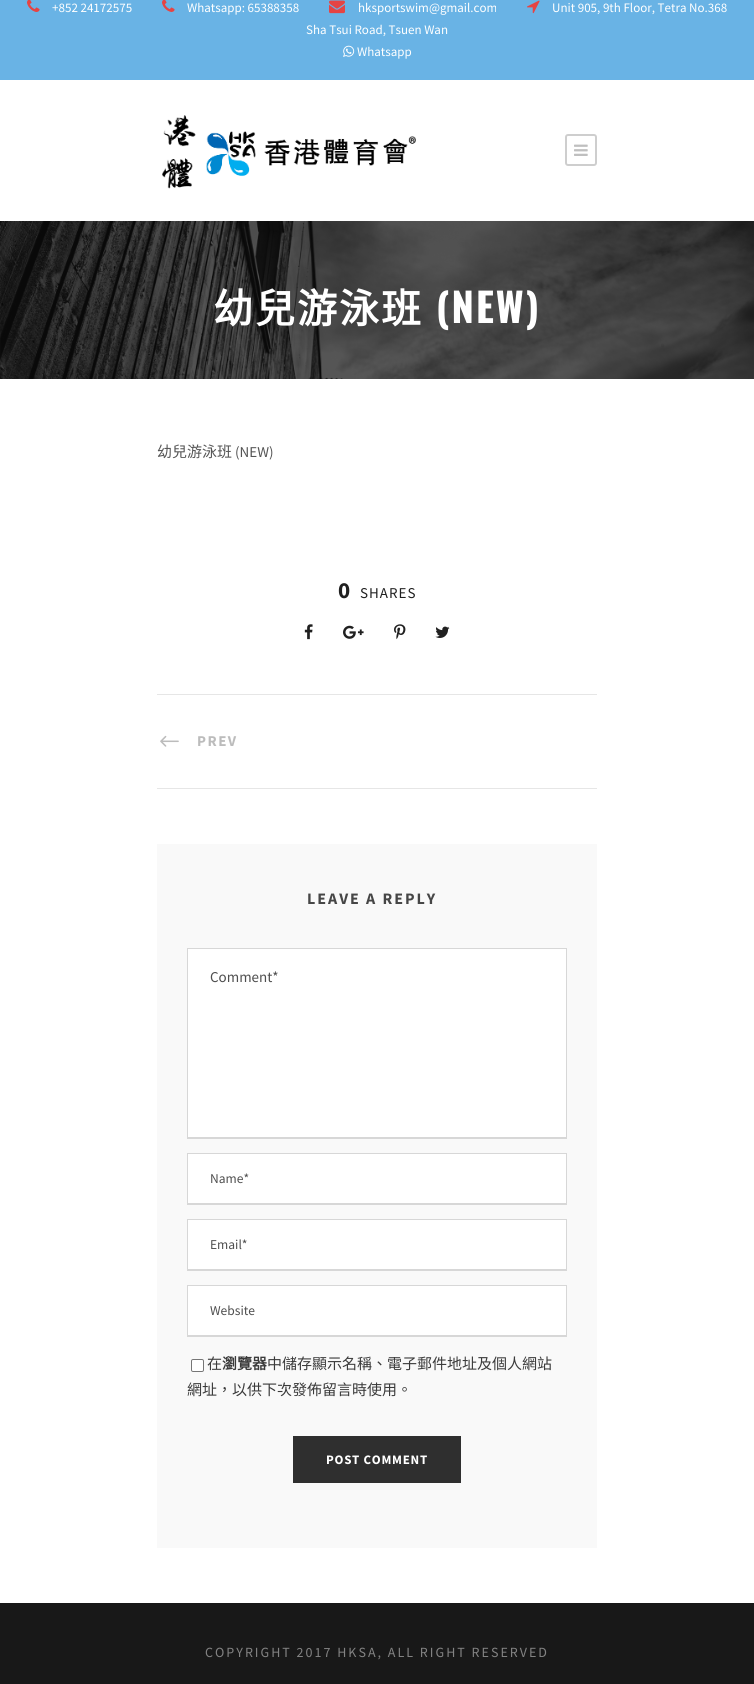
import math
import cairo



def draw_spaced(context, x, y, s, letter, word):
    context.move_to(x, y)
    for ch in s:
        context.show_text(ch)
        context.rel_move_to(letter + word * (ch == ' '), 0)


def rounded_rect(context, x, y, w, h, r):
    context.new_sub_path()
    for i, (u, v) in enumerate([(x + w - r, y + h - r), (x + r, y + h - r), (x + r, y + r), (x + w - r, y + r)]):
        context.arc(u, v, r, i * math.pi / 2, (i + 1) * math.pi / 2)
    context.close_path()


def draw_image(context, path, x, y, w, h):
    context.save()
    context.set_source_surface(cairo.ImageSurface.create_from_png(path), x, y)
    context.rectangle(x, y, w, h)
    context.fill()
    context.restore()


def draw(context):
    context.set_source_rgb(1, 1, 1)
    context.paint()
    context.set_source_rgb(105 / 255, 179 / 255, 229 / 255)
    context.rectangle(0, 0, 754, 80)
    context.fill()
    draw_image(context, "images/1.png", 27, 0, 13, 12)
    draw_image(context, "images/1.png", 162, 0, 13, 12)
    draw_image(context, "images/2.png", 329, 0, 16, 14)
    draw_image(context, "images/3.png", 527, 0, 13, 14)
    draw_image(context, "images/4.png", 343, 45, 12, 12)
    draw_image(context, "images/5.png", 162, 115, 254, 74)
    rounded_rect(context, 566, 135, 30, 30, 2)
    context.set_source_rgb(206 / 255, 206 / 255, 206 / 255)
    context.stroke()
    draw_image(context, "images/6.png", 574, 144, 14, 12)
    draw_image(context, "images/7.png", 0, 221, 754, 158)
    draw_image(context, "images/8.png", 304, 624, 9, 16)
    draw_image(context, "images/9.png", 343, 625, 21, 14)
    draw_image(context, "images/10.png", 394, 624, 12, 16)
    draw_image(context, "images/11.png", 435, 626, 15, 12)
    context.set_source_rgb(230 / 255, 230 / 255, 230 / 255)
    context.rectangle(157, 694, 440, 1)
    context.fill()
    context.rectangle(157, 788, 440, 1)
    context.fill()
    draw_image(context, "images/12.png", 160, 735, 19, 12)
    context.set_source_rgb(249 / 255, 249 / 255, 249 / 255)
    context.rectangle(157, 844, 440, 704)
    context.fill()
    context.set_source_rgb(1, 1, 1)
    context.rectangle(188, 949, 378, 188)
    context.fill()
    context.set_source_rgb(215 / 255, 215 / 255, 215 / 255)
    context.rectangle(187, 948, 380, 1)
    context.fill()
    context.rectangle(566, 948, 1, 191)
    context.fill()
    context.rectangle(187, 1137, 380, 2)
    context.fill()
    context.rectangle(187, 948, 1, 191)
    context.fill()
    context.set_source_rgb(1, 1, 1)
    context.rectangle(188, 1154, 378, 49)
    context.fill()
    context.set_source_rgb(215 / 255, 215 / 255, 215 / 255)
    context.rectangle(187, 1153, 380, 1)
    context.fill()
    context.rectangle(566, 1153, 1, 52)
    context.fill()
    context.rectangle(187, 1203, 380, 2)
    context.fill()
    context.rectangle(187, 1153, 1, 52)
    context.fill()
    context.set_source_rgb(1, 1, 1)
    context.rectangle(188, 1220, 378, 49)
    context.fill()
    context.set_source_rgb(215 / 255, 215 / 255, 215 / 255)
    context.rectangle(187, 1219, 380, 1)
    context.fill()
    context.rectangle(566, 1219, 1, 52)
    context.fill()
    context.rectangle(187, 1269, 380, 2)
    context.fill()
    context.rectangle(187, 1219, 1, 52)
    context.fill()
    context.set_source_rgb(1, 1, 1)
    context.rectangle(188, 1286, 378, 49)
    context.fill()
    context.set_source_rgb(215 / 255, 215 / 255, 215 / 255)
    context.rectangle(187, 1285, 380, 1)
    context.fill()
    context.rectangle(566, 1285, 1, 52)
    context.fill()
    context.rectangle(187, 1335, 380, 2)
    context.fill()
    context.rectangle(187, 1285, 1, 52)
    context.fill()
    context.set_source_rgb(1, 1, 1)
    rounded_rect(context, 191.5, 1359.5, 12, 12, 1.5)
    context.fill_preserve()
    context.set_source_rgb(118 / 255, 118 / 255, 118 / 255)
    context.set_line_width(1)
    context.stroke()
    context.set_source_rgb(47 / 255, 47 / 255, 47 / 255)
    context.rectangle(293, 1436, 168, 47)
    context.fill()
    context.set_source_rgb(24 / 255, 24 / 255, 24 / 255)
    context.rectangle(0, 1603, 754, 81)
    context.fill()
    context.select_font_face("Source Sans Pro")
    context.set_font_size(13)
    context.set_source_rgb(1, 1, 1)
    context.move_to(52, 12)
    context.show_text("+852 24172575")
    context.move_to(187, 12)
    context.show_text("Whatsapp: 65388358")
    context.move_to(358, 12)
    context.show_text("hksportswim@gmail.com")
    context.move_to(552, 12)
    context.show_text("Unit 905, 9th Floor, Tetra No.368")
    context.move_to(306, 34)
    context.show_text("Sha Tsui Road, Tsuen Wan")
    context.move_to(357, 56)
    context.show_text("Whatsapp")
    context.select_font_face("Noto Sans CJK TC", cairo.FontSlant.NORMAL, cairo.FontWeight.BOLD)
    context.set_font_size(40)
    draw_spaced(context, 213, 323, "幼兒游泳班", 2, 0)
    context.select_font_face("Oswald", cairo.FontSlant.NORMAL, cairo.FontWeight.BOLD)
    draw_spaced(context, 436, 323, "(NEW)", 2, 0)
    context.select_font_face("Noto Sans CJK TC")
    context.set_font_size(15)
    context.set_source_rgb(84 / 255, 84 / 255, 84 / 255)
    context.move_to(157, 457)
    context.show_text("幼兒游泳班")
    context.select_font_face("Source Sans Pro")
    context.move_to(235, 457)
    context.show_text("(NEW)")
    context.select_font_face("Source Sans Pro", cairo.FontSlant.NORMAL, cairo.FontWeight.BOLD)
    context.set_font_size(23)
    context.set_source_rgb(32 / 255, 32 / 255, 32 / 255)
    context.move_to(338, 598)
    context.show_text("0")
    context.select_font_face("Source Sans Pro")
    context.set_font_size(15)
    draw_spaced(context, 360, 598, "SHARES", 1, 0)
    context.select_font_face("Source Sans Pro", cairo.FontSlant.NORMAL, cairo.FontWeight.BOLD)
    context.set_source_rgb(188 / 255, 188 / 255, 188 / 255)
    draw_spaced(context, 197, 746, "PREV", 1.5, 0)
    context.set_font_size(16)
    context.set_source_rgb(70 / 255, 70 / 255, 70 / 255)
    draw_spaced(context, 307, 904, "LEAVE A REPLY", 2, 0)
    context.select_font_face("Source Sans Pro")
    context.set_font_size(15)
    context.set_source_rgb(78 / 255, 78 / 255, 78 / 255)
    context.move_to(210, 982)
    context.show_text("Comment*")
    context.set_font_size(13.5)
    context.move_to(210, 1183)
    context.show_text("Name*")
    context.move_to(210, 1249)
    context.show_text("Email*")
    context.move_to(210, 1315)
    context.show_text("Website")
    context.select_font_face("Noto Sans CJK TC")
    context.set_font_size(15)
    context.set_source_rgb(58 / 255, 58 / 255, 58 / 255)
    context.move_to(207, 1369)
    context.show_text("在")
    context.select_font_face("Noto Sans CJK TC", cairo.FontSlant.NORMAL, cairo.FontWeight.BOLD)
    context.move_to(222, 1369)
    context.show_text("瀏覽器")
    context.select_font_face("Noto Sans CJK TC")
    context.move_to(267, 1369)
    context.show_text("中儲存顯示名稱、電子郵件地址及個人網站")
    context.move_to(187, 1395)
    context.show_text("網址，以供下次發佈留言時使用。")
    context.select_font_face("Source Sans Pro", cairo.FontSlant.NORMAL, cairo.FontWeight.BOLD)
    context.set_font_size(13)
    context.set_source_rgb(1, 1, 1)
    draw_spaced(context, 326, 1464, "POST COMMENT", 0.75, 0)
    context.select_font_face("Source Sans Pro")
    context.set_font_size(14)
    context.set_source_rgb(131 / 255, 131 / 255, 131 / 255)
    draw_spaced(context, 205, 1657, "COPYRIGHT 2017 HKSA, ALL RIGHT RESERVED", 2, 0)


surface = cairo.ImageSurface(cairo.Format.RGB24, 754, 1684)
context = cairo.Context(surface)
options = cairo.FontOptions()
options.set_hint_metrics(cairo.HintMetrics.OFF)
options.set_hint_style(cairo.HintStyle.NONE)
context.set_font_options(options)
context.set_miter_limit(4)
draw(context)
surface.write_to_png("out.png")
